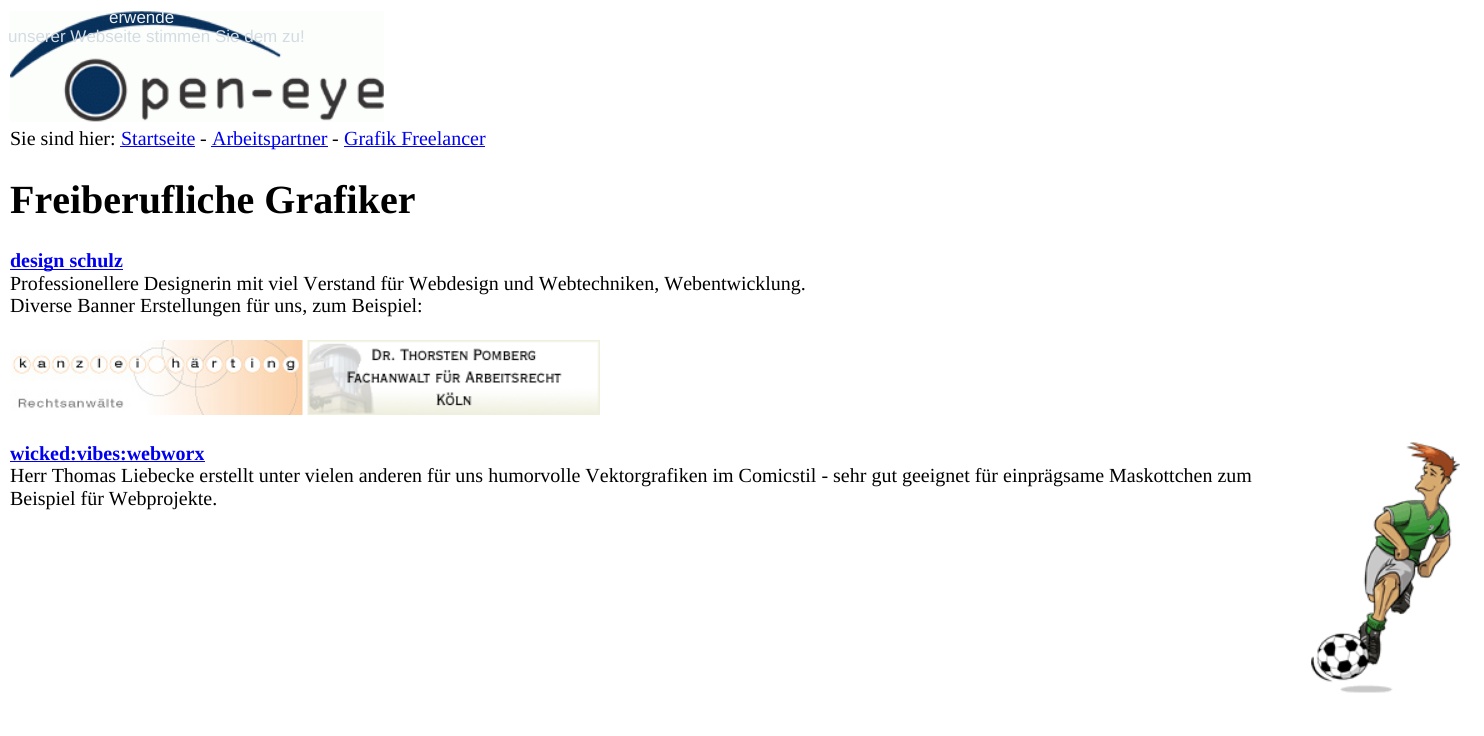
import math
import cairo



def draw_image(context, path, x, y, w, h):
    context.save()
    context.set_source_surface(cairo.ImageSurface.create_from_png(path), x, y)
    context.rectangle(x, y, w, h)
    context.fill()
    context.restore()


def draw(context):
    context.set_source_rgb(1, 1, 1)
    context.paint()
    draw_image(context, "images/1.png", 10, 11, 374, 111)
    context.set_source_rgb(0, 0, 238 / 255)
    context.rectangle(120, 146, 75, 1)
    context.fill()
    context.rectangle(211, 146, 117, 1)
    context.fill()
    context.rectangle(344, 146, 141, 1)
    context.fill()
    context.rectangle(10, 269, 113, 1)
    context.fill()
    draw_image(context, "images/2.png", 10, 340, 293, 75)
    draw_image(context, "images/3.png", 307, 340, 293, 75)
    context.rectangle(10, 461, 195, 1)
    context.fill()
    draw_image(context, "images/4.png", 1311, 442, 149, 251)
    context.select_font_face("Liberation Sans")
    context.set_font_size(17)
    context.set_source_rgb(238 / 255, 241 / 255, 243 / 255)
    context.move_to(109, 23)
    context.show_text("erwende")
    context.set_source_rgb(212 / 255, 220 / 255, 226 / 255)
    context.move_to(8, 42)
    context.show_text("unserer Webseite stimmen Sie dem zu!")
    context.select_font_face("Liberation Serif")
    context.set_font_size(20)
    context.set_source_rgb(0, 0, 0)
    context.move_to(10, 145)
    context.show_text("Sie sind hier:")
    context.set_source_rgb(0, 0, 238 / 255)
    context.move_to(121, 145)
    context.show_text("Startseite")
    context.set_source_rgb(0, 0, 0)
    context.move_to(200, 145)
    context.show_text("-")
    context.set_source_rgb(0, 0, 238 / 255)
    context.move_to(212, 145)
    context.show_text("Arbeitspartner")
    context.set_source_rgb(0, 0, 0)
    context.move_to(332, 145)
    context.show_text("-")
    context.set_source_rgb(0, 0, 238 / 255)
    context.move_to(344, 145)
    context.show_text("Grafik Freelancer")
    context.select_font_face("Liberation Serif", cairo.FontSlant.NORMAL, cairo.FontWeight.BOLD)
    context.set_font_size(40)
    context.set_source_rgb(0, 0, 0)
    context.move_to(10, 213)
    context.show_text("Freiberufliche Grafiker")
    context.set_font_size(20)
    context.set_source_rgb(0, 0, 238 / 255)
    context.move_to(10, 267)
    context.show_text("design schulz")
    context.select_font_face("Liberation Serif")
    context.set_source_rgb(0, 0, 0)
    context.move_to(10, 290)
    context.show_text("Professionellere Designerin mit viel Verstand für Webdesign und Webtechniken, Webentwicklung.")
    context.move_to(10, 312)
    context.show_text("Diverse Banner Erstellungen für uns, zum Beispiel:")
    context.select_font_face("Liberation Serif", cairo.FontSlant.NORMAL, cairo.FontWeight.BOLD)
    context.set_source_rgb(0, 0, 238 / 255)
    context.move_to(10, 460)
    context.show_text("wicked:vibes:webworx")
    context.select_font_face("Liberation Serif")
    context.set_source_rgb(0, 0, 0)
    context.move_to(10, 482)
    context.show_text("Herr Thomas Liebecke erstellt unter vielen anderen für uns humorvolle Vektorgrafiken im Comicstil - sehr gut geeignet für einprägsame Maskottchen zum")
    context.move_to(10, 505)
    context.show_text("Beispiel für Webprojekte.")


surface = cairo.ImageSurface(cairo.Format.RGB24, 1484, 736)
context = cairo.Context(surface)
options = cairo.FontOptions()
options.set_hint_metrics(cairo.HintMetrics.OFF)
options.set_hint_style(cairo.HintStyle.NONE)
context.set_font_options(options)
context.set_miter_limit(4)
draw(context)
surface.write_to_png("out.png")
